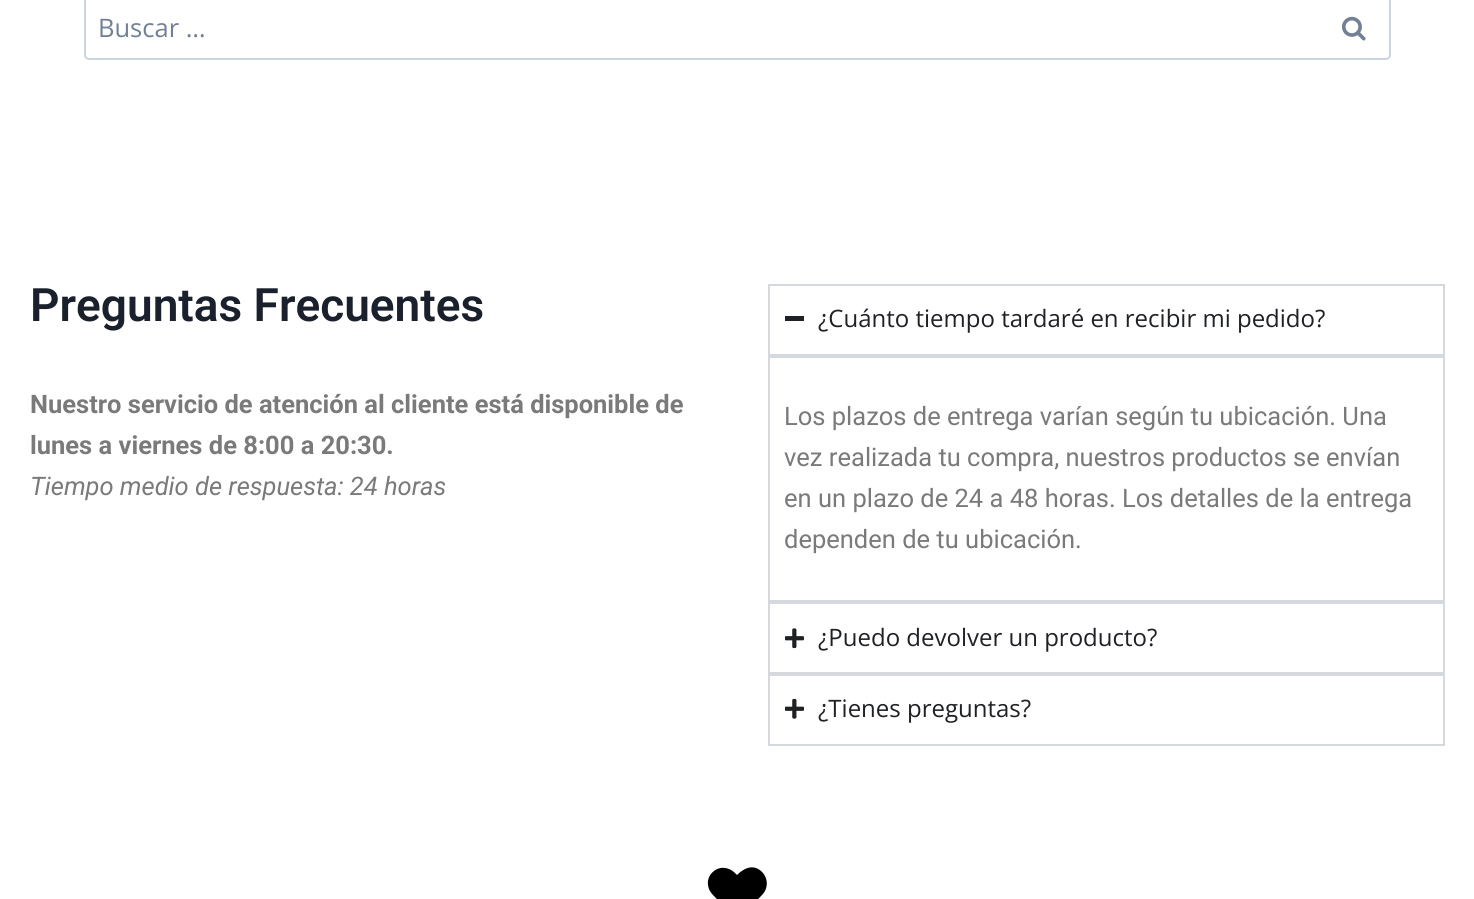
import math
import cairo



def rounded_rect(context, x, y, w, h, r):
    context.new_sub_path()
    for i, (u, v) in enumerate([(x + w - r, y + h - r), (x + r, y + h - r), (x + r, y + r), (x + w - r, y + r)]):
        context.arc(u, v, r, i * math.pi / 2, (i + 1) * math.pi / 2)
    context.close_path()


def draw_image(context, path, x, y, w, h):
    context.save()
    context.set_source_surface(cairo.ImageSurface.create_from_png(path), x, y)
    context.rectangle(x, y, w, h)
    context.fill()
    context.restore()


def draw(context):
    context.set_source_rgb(1, 1, 1)
    context.paint()
    rounded_rect(context, 85, -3, 1305, 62, 4)
    context.set_source_rgb(203 / 255, 213 / 255, 224 / 255)
    context.stroke()
    draw_image(context, "images/1.png", 1341, 16, 25, 25)
    context.rectangle(769, 285, 675, 70)
    context.set_source_rgb(213 / 255, 216 / 255, 220 / 255)
    context.stroke()
    context.set_source_rgb(31 / 255, 33 / 255, 36 / 255)
    context.rectangle(785, 316, 19, 5)
    context.fill()
    context.rectangle(769, 357, 675, 244)
    context.set_source_rgb(213 / 255, 216 / 255, 220 / 255)
    context.stroke()
    context.rectangle(769, 603, 675, 70)
    context.stroke()
    draw_image(context, "images/2.png", 785, 628, 19, 21)
    context.rectangle(769, 675, 675, 70)
    context.stroke()
    draw_image(context, "images/3.png", 785, 698, 19, 21)
    context.set_source_rgb(0, 0, 0)
    context.new_path()
    context.move_to(761, 871)
    context.curve_to(753, 864, 744, 868, 737, 875)
    context.line_to(735, 873)
    context.curve_to(729, 867, 720, 866, 714, 871)
    context.curve_to(706, 877, 706, 888, 713, 895)
    context.line_to(735, 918)
    context.curve_to(736, 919, 738, 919, 740, 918)
    context.line_to(762, 895)
    context.curve_to(769, 888, 768, 877, 761, 871)
    context.close_path()
    context.fill()
    context.select_font_face("Open Sans")
    context.set_font_size(25.5)
    context.set_source_rgb(113 / 255, 128 / 255, 150 / 255)
    context.move_to(98, 37)
    context.show_text("Buscar …")
    context.select_font_face("Roboto SemiBold")
    context.set_font_size(46)
    context.set_source_rgb(26 / 255, 32 / 255, 44 / 255)
    context.move_to(30, 321)
    context.show_text("Preguntas Frecuentes")
    context.select_font_face("Roboto", cairo.FontSlant.NORMAL, cairo.FontWeight.BOLD)
    context.set_font_size(25.5)
    context.set_source_rgb(122 / 255, 122 / 255, 122 / 255)
    context.move_to(30, 413)
    context.show_text("Nuestro servicio de atención al cliente está disponible de")
    context.move_to(30, 454)
    context.show_text("lunes a viernes de 8:00 a 20:30.")
    context.select_font_face("Roboto", cairo.FontSlant.ITALIC)
    context.move_to(30, 495)
    context.show_text("Tiempo medio de respuesta: 24 horas")
    context.select_font_face("Open Sans")
    context.set_font_size(24)
    context.set_source_rgb(31 / 255, 33 / 255, 36 / 255)
    context.move_to(818, 327)
    context.show_text("¿Cuánto tiempo tardaré en recibir mi pedido?")
    context.select_font_face("Roboto")
    context.set_font_size(25.5)
    context.set_source_rgb(122 / 255, 122 / 255, 122 / 255)
    context.move_to(784, 425)
    context.show_text("Los plazos de entrega varían según tu ubicación. Una")
    context.move_to(784, 466)
    context.show_text("vez realizada tu compra, nuestros productos se envían")
    context.move_to(784, 507)
    context.show_text("en un plazo de 24 a 48 horas. Los detalles de la entrega")
    context.move_to(784, 548)
    context.show_text("dependen de tu ubicación.")
    context.select_font_face("Open Sans")
    context.set_font_size(24)
    context.set_source_rgb(31 / 255, 33 / 255, 36 / 255)
    context.move_to(818, 646)
    context.show_text("¿Puedo devolver un producto?")
    context.move_to(818, 717)
    context.show_text("¿Tienes preguntas?")


surface = cairo.ImageSurface(cairo.Format.RGB24, 1474, 899)
context = cairo.Context(surface)
options = cairo.FontOptions()
options.set_hint_metrics(cairo.HintMetrics.OFF)
options.set_hint_style(cairo.HintStyle.NONE)
context.set_font_options(options)
context.set_miter_limit(4)
draw(context)
surface.write_to_png("out.png")
